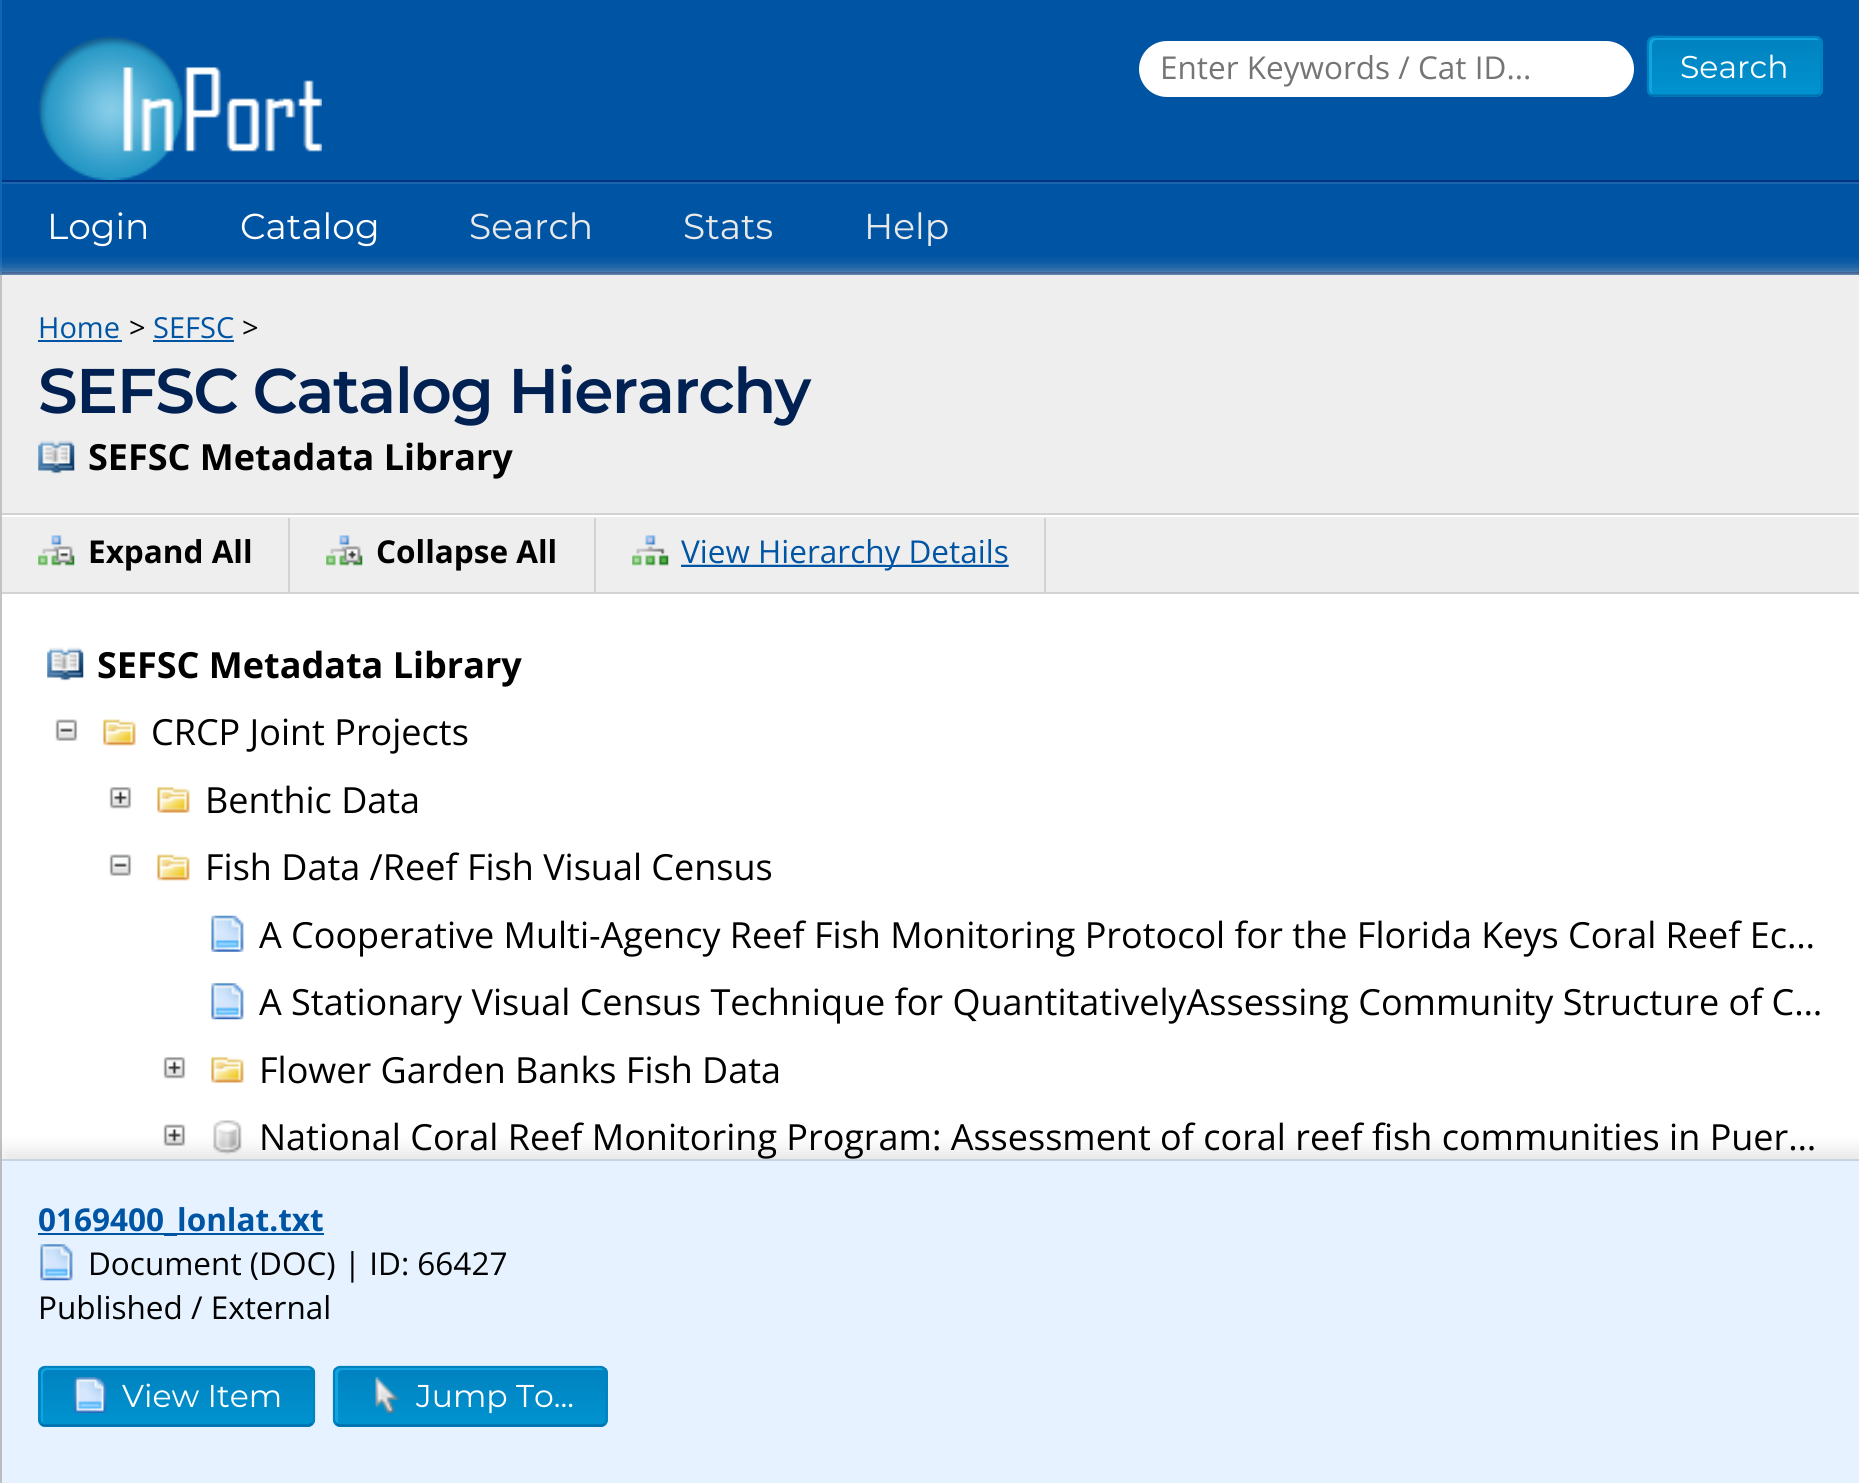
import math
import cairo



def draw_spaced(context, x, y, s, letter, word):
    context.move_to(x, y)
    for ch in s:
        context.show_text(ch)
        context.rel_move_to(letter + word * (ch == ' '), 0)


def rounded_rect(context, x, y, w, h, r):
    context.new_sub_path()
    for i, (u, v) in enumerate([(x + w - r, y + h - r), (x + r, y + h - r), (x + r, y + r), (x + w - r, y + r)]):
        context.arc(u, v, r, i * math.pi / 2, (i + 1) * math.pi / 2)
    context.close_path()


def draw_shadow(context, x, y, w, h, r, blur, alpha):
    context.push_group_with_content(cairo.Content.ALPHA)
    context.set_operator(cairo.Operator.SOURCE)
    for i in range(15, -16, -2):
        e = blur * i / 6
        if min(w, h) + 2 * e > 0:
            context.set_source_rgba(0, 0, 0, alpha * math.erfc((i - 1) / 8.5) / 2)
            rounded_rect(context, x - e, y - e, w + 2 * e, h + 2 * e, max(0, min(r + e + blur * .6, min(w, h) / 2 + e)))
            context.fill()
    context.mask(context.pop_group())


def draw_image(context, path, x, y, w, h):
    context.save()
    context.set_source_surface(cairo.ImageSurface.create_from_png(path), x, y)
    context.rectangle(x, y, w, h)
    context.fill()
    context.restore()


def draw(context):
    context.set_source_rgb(0, 84 / 255, 164 / 255)
    context.paint()
    context.set_source_rgb(17 / 255, 101 / 255, 181 / 255)
    context.rectangle(0, 0, 2, 180)
    context.fill()
    draw_image(context, "images/1.png", 38, 36, 284, 144)
    context.set_source_rgb(1, 1, 1)
    rounded_rect(context, 1139, 41, 495, 56, 28)
    context.fill()
    context.save()
    rounded_rect(context, 1647, 36, 176, 61, 7)
    context.clip()
    gradient = cairo.LinearGradient(1735, 95, 1735, 38)
    gradient.add_color_stop_rgba(0, 0, 147 / 255, 208 / 255, 1)
    gradient.add_color_stop_rgba(1, 0, 130 / 255, 191 / 255, 1)
    context.set_source(gradient)
    context.rectangle(1647, 38, 176, 57)
    context.fill()
    gradient = cairo.LinearGradient(1735, 151, 1735, 95)
    gradient.add_color_stop_rgba(0, 0, 147 / 255, 208 / 255, 1)
    gradient.add_color_stop_rgba(1, 0, 130 / 255, 191 / 255, 1)
    context.set_source(gradient)
    context.rectangle(1647, 95, 176, 2)
    context.fill()
    context.restore()
    context.set_source_rgb(17 / 255, 164 / 255, 225 / 255)
    context.new_path()
    context.move_to(1656, 40)
    context.line_to(1819, 40)
    context.curve_to(1818, 39, 1817, 38, 1815, 38)
    context.line_to(1654, 38)
    context.curve_to(1651, 38, 1649, 40, 1649, 43)
    context.line_to(1649, 90)
    context.curve_to(1649, 92, 1651, 94, 1653, 95)
    context.line_to(1652, 92)
    context.line_to(1652, 45)
    context.curve_to(1652, 43, 1654, 40, 1656, 40)
    context.close_path()
    context.fill()
    context.new_path()
    context.move_to(1819.5, 94)
    context.curve_to(1818.5, 95, 1817, 95.5, 1816, 95.5)
    context.line_to(1654, 95.5)
    context.curve_to(1652.5, 95.5, 1651, 95, 1650, 94)
    context.set_source_rgb(0, 113 / 255, 174 / 255)
    context.set_line_width(2.2)
    context.stroke()
    context.new_path()
    context.move_to(1650, 94)
    context.curve_to(1647, 91, 1648, 85, 1648, 82)
    context.line_to(1648, 66.5)
    context.curve_to(1648, 31, 1642.5, 37, 1681, 37)
    context.line_to(1816, 37)
    context.curve_to(1823, 37, 1821.5, 46.5, 1821.5, 50.5)
    context.line_to(1821.5, 82)
    context.curve_to(1821.5, 85, 1822.5, 91, 1819.5, 94)
    context.set_source_rgb(0, 130 / 255, 191 / 255)
    context.stroke()
    context.set_source_rgb(0, 50 / 255, 130 / 255)
    context.rectangle(0, 272, 1859, 2)
    context.fill()
    context.set_source_rgb(17 / 255, 101 / 255, 181 / 255)
    context.rectangle(0, 180, 2, 95)
    context.fill()
    context.set_source_rgb(26 / 255, 101 / 255, 173 / 255)
    context.rectangle(2, 182, 1857, 2)
    context.fill()
    context.set_source_rgb(0, 50 / 255, 130 / 255)
    context.rectangle(2, 180, 1857, 2)
    context.fill()
    context.set_source_rgb(187 / 255, 187 / 255, 187 / 255)
    draw_shadow(context, 0, 275, 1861, 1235, 0, 9, 1)
    context.set_source_rgb(1, 1, 1)
    context.rectangle(2, 594, 1857, 565)
    context.fill()
    context.set_source_rgb(195 / 255, 195 / 255, 195 / 255)
    context.rectangle(0, 275, 2, 1208)
    context.fill()
    context.set_source_rgb(238 / 255, 238 / 255, 238 / 255)
    context.rectangle(2, 275, 1857, 238)
    context.fill()
    context.set_source_rgb(210 / 255, 210 / 255, 210 / 255)
    context.rectangle(2, 513, 1857, 2)
    context.fill()
    context.set_source_rgb(0, 84 / 255, 164 / 255)
    context.rectangle(38, 340, 84, 2)
    context.fill()
    context.rectangle(153, 340, 81, 2)
    context.fill()
    draw_image(context, "images/2.png", 38, 440, 37, 34)
    context.set_source_rgb(238 / 255, 238 / 255, 238 / 255)
    context.rectangle(2, 517, 1857, 75)
    context.fill()
    context.set_source_rgb(1, 1, 1)
    context.rectangle(2, 515, 1857, 2)
    context.fill()
    context.set_source_rgb(210 / 255, 210 / 255, 210 / 255)
    context.rectangle(2, 592, 1857, 2)
    context.fill()
    context.rectangle(288, 518, 2, 74)
    context.fill()
    draw_image(context, "images/3.png", 38, 535, 37, 31)
    context.rectangle(594, 518, 2, 74)
    context.fill()
    draw_image(context, "images/4.png", 326, 535, 37, 31)
    context.rectangle(1044, 518, 2, 74)
    context.fill()
    draw_image(context, "images/5.png", 632, 535, 377, 32)
    context.set_source_rgb(0, 84 / 255, 164 / 255)
    context.rectangle(886, 565, 10, 2)
    context.fill()
    draw_image(context, "images/6.png", 47, 647, 37, 34)
    draw_image(context, "images/7.png", 55, 719, 23, 22)
    draw_image(context, "images/8.png", 103, 719, 33, 27)
    draw_image(context, "images/9.png", 109, 787, 23, 22)
    draw_image(context, "images/10.png", 157, 787, 33, 26)
    draw_image(context, "images/11.png", 109, 854, 23, 22)
    draw_image(context, "images/8.png", 157, 854, 33, 27)
    draw_image(context, "images/12.png", 211, 915, 33, 37)
    draw_image(context, "images/13.png", 211, 983, 33, 37)
    draw_image(context, "images/9.png", 163, 1057, 23, 22)
    draw_image(context, "images/10.png", 211, 1057, 33, 26)
    draw_image(context, "images/14.png", 163, 1124, 23, 22)
    draw_image(context, "images/15.png", 213, 1120, 29, 35)
    context.set_source_rgb(0, 0, 0)
    draw_shadow(context, 2, 1150, 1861, 326, 0, 9, 0.1)
    context.set_source_rgb(230 / 255, 242 / 255, 1)
    context.rectangle(2, 1161, 1857, 322)
    context.fill()
    context.set_source_rgb(199 / 255, 211 / 255, 224 / 255)
    context.rectangle(2, 1159, 1857, 2)
    context.fill()
    context.set_source_rgb(0, 84 / 255, 164 / 255)
    context.rectangle(38, 1233, 286, 2)
    context.fill()
    draw_image(context, "images/16.png", 40, 1244, 33, 37)
    context.save()
    rounded_rect(context, 38, 1366, 277, 61, 7)
    context.clip()
    gradient = cairo.LinearGradient(177, 1424, 177, 1368)
    gradient.add_color_stop_rgba(0, 0, 147 / 255, 208 / 255, 1)
    gradient.add_color_stop_rgba(1, 0, 130 / 255, 191 / 255, 1)
    context.set_source(gradient)
    context.rectangle(38, 1368, 277, 56)
    context.fill()
    gradient = cairo.LinearGradient(177, 1481, 177, 1424)
    gradient.add_color_stop_rgba(0, 0, 147 / 255, 208 / 255, 1)
    gradient.add_color_stop_rgba(1, 0, 130 / 255, 191 / 255, 1)
    context.set_source(gradient)
    context.rectangle(38, 1424, 277, 3)
    context.fill()
    context.restore()
    context.set_source_rgb(17 / 255, 164 / 255, 225 / 255)
    context.new_path()
    context.move_to(47, 1370)
    context.line_to(310, 1370)
    context.line_to(312, 1370)
    context.curve_to(311, 1369, 310, 1368, 308, 1368)
    context.line_to(46, 1368)
    context.curve_to(43, 1368, 41, 1370, 41, 1373)
    context.line_to(41, 1419)
    context.curve_to(41, 1421, 42, 1422, 43, 1423)
    context.line_to(43, 1383)
    context.curve_to(43, 1381, 41, 1370, 47, 1370)
    context.close_path()
    context.fill()
    context.new_path()
    context.move_to(312, 1423.5)
    context.line_to(309, 1425.5)
    context.line_to(45, 1425.5)
    context.curve_to(43.5, 1425.5, 42, 1425, 41, 1423.5)
    context.set_source_rgb(0, 113 / 255, 174 / 255)
    context.stroke()
    context.new_path()
    context.move_to(41, 1423.5)
    context.curve_to(40, 1422.5, 39.5, 1421, 39.5, 1420)
    context.line_to(39.5, 1372.5)
    context.curve_to(39.5, 1371, 40, 1369.5, 41, 1368.5)
    context.curve_to(42, 1367.5, 43.5, 1367, 45, 1367)
    context.line_to(308, 1367)
    context.curve_to(309.5, 1367, 311, 1367.5, 312, 1368.5)
    context.curve_to(313.5, 1369.5, 314, 1371, 314, 1372.5)
    context.line_to(314, 1420)
    context.curve_to(314, 1421, 313.5, 1422.5, 312, 1423.5)
    context.set_source_rgb(0, 130 / 255, 191 / 255)
    context.stroke()
    draw_image(context, "images/17.png", 73, 1377, 34, 36)
    context.save()
    rounded_rect(context, 333, 1366, 275, 61, 7)
    context.clip()
    gradient = cairo.LinearGradient(470, 1424, 470, 1368)
    gradient.add_color_stop_rgba(0, 0, 147 / 255, 208 / 255, 1)
    gradient.add_color_stop_rgba(1, 0, 130 / 255, 191 / 255, 1)
    context.set_source(gradient)
    context.rectangle(333, 1368, 275, 56)
    context.fill()
    gradient = cairo.LinearGradient(470, 1481, 470, 1424)
    gradient.add_color_stop_rgba(0, 0, 147 / 255, 208 / 255, 1)
    gradient.add_color_stop_rgba(1, 0, 130 / 255, 191 / 255, 1)
    context.set_source(gradient)
    context.rectangle(333, 1424, 275, 3)
    context.fill()
    context.restore()
    context.set_source_rgb(17 / 255, 164 / 255, 225 / 255)
    context.new_path()
    context.move_to(342, 1370)
    context.line_to(604, 1370)
    context.curve_to(603, 1369, 602, 1368, 600, 1368)
    context.line_to(340, 1368)
    context.curve_to(337, 1368, 335, 1370, 335, 1373)
    context.line_to(335, 1419)
    context.curve_to(335, 1421, 336, 1423, 339, 1424)
    context.line_to(338, 1422)
    context.line_to(338, 1375)
    context.curve_to(338, 1372, 340, 1370, 342, 1370)
    context.close_path()
    context.fill()
    context.new_path()
    context.move_to(604.5, 1423.5)
    context.curve_to(603.5, 1425, 602, 1425.5, 601, 1425.5)
    context.line_to(339, 1425.5)
    context.line_to(336, 1423.5)
    context.set_source_rgb(0, 113 / 255, 174 / 255)
    context.stroke()
    context.new_path()
    context.move_to(336, 1423.5)
    context.curve_to(334.5, 1422.5, 334, 1421, 334, 1420)
    context.line_to(334, 1372.5)
    context.curve_to(334, 1371, 334.5, 1369.5, 336, 1368.5)
    context.curve_to(337, 1367.5, 338.5, 1367, 340, 1367)
    context.line_to(601, 1367)
    context.curve_to(602, 1367, 603.5, 1367.5, 604.5, 1368.5)
    context.curve_to(606, 1369.5, 606.5, 1371, 606.5, 1372.5)
    context.line_to(606.5, 1420)
    context.curve_to(606.5, 1421, 606, 1422.5, 604.5, 1423.5)
    context.set_source_rgb(0, 130 / 255, 191 / 255)
    context.stroke()
    draw_image(context, "images/18.png", 375, 1377, 24, 36)
    context.select_font_face("Open Sans")
    context.set_font_size(31.5)
    context.set_source_rgb(117 / 255, 117 / 255, 117 / 255)
    context.move_to(1160, 79)
    context.show_text("Enter Keywords / Cat ID...")
    context.select_font_face("Montserrat")
    context.set_source_rgb(1, 1, 1)
    context.move_to(1680, 78)
    context.show_text("Search")
    context.set_font_size(36)
    context.move_to(47, 239)
    context.show_text("Login")
    context.move_to(240, 239)
    context.show_text("Catalog")
    context.set_source_rgb(233 / 255, 233 / 255, 233 / 255)
    context.move_to(469, 239)
    context.show_text("Search")
    context.move_to(683, 239)
    context.show_text("Stats")
    context.move_to(864, 239)
    context.show_text("Help")
    context.select_font_face("Open Sans")
    context.set_font_size(29)
    context.set_source_rgb(0, 84 / 255, 164 / 255)
    context.move_to(38, 338)
    context.show_text("Home")
    context.set_source_rgb(0, 0, 0)
    context.move_to(129, 338)
    context.show_text(">")
    context.set_source_rgb(0, 84 / 255, 164 / 255)
    context.move_to(153, 338)
    context.show_text("SEFSC")
    context.set_source_rgb(0, 0, 0)
    context.move_to(242, 338)
    context.show_text(">")
    context.select_font_face("Montserrat SemiBold")
    context.set_font_size(63)
    context.set_source_rgb(0, 33 / 255, 81 / 255)
    draw_spaced(context, 38, 413, "SEFSC Catalog Hierarchy", -1.6, 0)
    context.select_font_face("Open Sans", cairo.FontSlant.NORMAL, cairo.FontWeight.BOLD)
    context.set_font_size(36)
    context.set_source_rgb(0, 0, 0)
    context.move_to(88, 470)
    context.show_text("SEFSC Metadata Library")
    context.set_font_size(31.5)
    context.move_to(88, 563)
    context.show_text("Expand All")
    context.move_to(376, 563)
    context.show_text("Collapse All")
    context.select_font_face("Open Sans")
    context.set_source_rgb(0, 84 / 255, 164 / 255)
    context.move_to(681, 563)
    context.show_text("View Hierarchy Details")
    context.select_font_face("Open Sans", cairo.FontSlant.NORMAL, cairo.FontWeight.BOLD)
    context.set_font_size(36)
    context.set_source_rgb(0, 0, 0)
    context.move_to(97, 678)
    context.show_text("SEFSC Metadata Library")
    context.select_font_face("Open Sans")
    context.move_to(151, 745)
    context.show_text("CRCP Joint Projects")
    context.move_to(205, 813)
    context.show_text("Benthic Data")
    context.move_to(205, 880)
    context.show_text("Fish Data /Reef Fish Visual Census")
    context.move_to(259, 948)
    context.show_text("A Cooperative Multi-Agency Reef Fish Monitoring Protocol for the Florida Keys Coral Reef Ec…")
    context.move_to(259, 1015)
    context.show_text("A Stationary Visual Census Technique for QuantitativelyAssessing Community Structure of C…")
    context.move_to(259, 1083)
    context.show_text("Flower Garden Banks Fish Data")
    context.move_to(259, 1150)
    context.show_text("National Coral Reef Monitoring Program: Assessment of coral reef fish communities in Puer…")
    context.select_font_face("Open Sans", cairo.FontSlant.NORMAL, cairo.FontWeight.BOLD)
    context.set_font_size(31.5)
    context.set_source_rgb(0, 84 / 255, 164 / 255)
    context.move_to(38, 1231)
    context.show_text("0169400_lonlat.txt")
    context.select_font_face("Open Sans")
    context.set_source_rgb(0, 0, 0)
    context.move_to(88, 1275)
    context.show_text("Document (DOC) | ID: 66427")
    context.move_to(38, 1319)
    context.show_text("Published / External")
    context.select_font_face("Montserrat")
    context.set_source_rgb(1, 1, 1)
    context.move_to(122, 1407)
    context.show_text("View Item")
    context.move_to(416, 1407)
    context.show_text("Jump To...")


surface = cairo.ImageSurface(cairo.Format.RGB24, 1859, 1483)
context = cairo.Context(surface)
options = cairo.FontOptions()
options.set_hint_metrics(cairo.HintMetrics.OFF)
options.set_hint_style(cairo.HintStyle.NONE)
context.set_font_options(options)
context.set_miter_limit(4)
draw(context)
surface.write_to_png("out.png")
